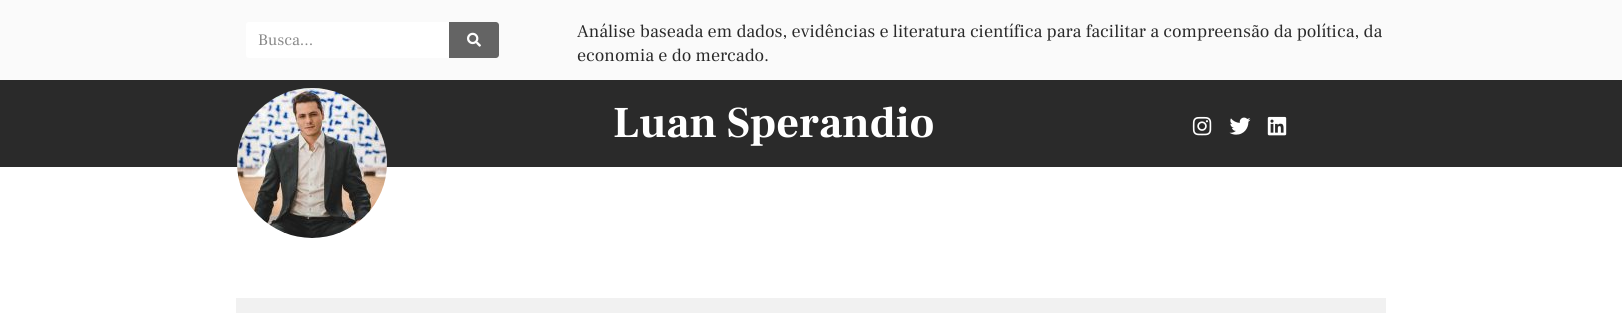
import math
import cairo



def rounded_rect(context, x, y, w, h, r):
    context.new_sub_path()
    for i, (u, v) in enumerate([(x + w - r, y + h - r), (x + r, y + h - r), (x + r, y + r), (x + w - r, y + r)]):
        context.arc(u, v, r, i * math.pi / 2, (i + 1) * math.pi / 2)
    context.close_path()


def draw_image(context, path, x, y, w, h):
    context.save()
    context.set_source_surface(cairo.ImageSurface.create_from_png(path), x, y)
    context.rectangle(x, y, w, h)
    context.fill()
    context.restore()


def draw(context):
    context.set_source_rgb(1, 1, 1)
    context.paint()
    context.set_source_rgb(250 / 255, 250 / 255, 250 / 255)
    context.rectangle(0, 0, 1622, 80)
    context.fill()
    context.set_source_rgb(1, 1, 1)
    rounded_rect(context, 246, 22, 253, 36, 3)
    context.fill()
    context.set_source_rgb(100 / 255, 100 / 255, 100 / 255)
    context.new_path()
    context.move_to(449, 22)
    context.line_to(496, 22)
    context.curve_to(497.5, 22, 499, 23.5, 499, 25)
    context.line_to(499, 55)
    context.curve_to(499, 56.5, 497.5, 58, 496, 58)
    context.line_to(449, 58)
    context.close_path()
    context.fill()
    draw_image(context, "images/1.png", 467, 32, 14, 15)
    context.set_source_rgb(42 / 255, 42 / 255, 42 / 255)
    context.rectangle(0, 80, 1622, 87)
    context.fill()
    draw_image(context, "images/2.png", 237, 88, 150, 150)
    draw_image(context, "images/3.png", 1192, 116, 20, 20)
    draw_image(context, "images/4.png", 1229, 117, 22, 18)
    draw_image(context, "images/5.png", 1267, 116, 20, 20)
    context.set_source_rgb(241 / 255, 241 / 255, 241 / 255)
    context.rectangle(236, 298, 1150, 15)
    context.fill()
    context.select_font_face("Frank Ruhl Libre")
    context.set_font_size(16)
    context.set_source_rgb(136 / 255, 136 / 255, 136 / 255)
    context.move_to(258, 45)
    context.show_text("Busca...")
    context.set_font_size(18)
    context.set_source_rgb(42 / 255, 42 / 255, 42 / 255)
    context.move_to(577, 37)
    context.show_text("Análise baseada em dados, evidências e literatura científica para facilitar a compreensão da política, da")
    context.move_to(577, 61)
    context.show_text("economia e do mercado.")
    context.select_font_face("Frank Ruhl Libre", cairo.FontSlant.NORMAL, cairo.FontWeight.BOLD)
    context.set_font_size(44)
    context.set_source_rgb(1, 1, 1)
    context.move_to(613, 137)
    context.show_text("Luan Sperandio")


surface = cairo.ImageSurface(cairo.Format.RGB24, 1622, 313)
context = cairo.Context(surface)
options = cairo.FontOptions()
options.set_hint_metrics(cairo.HintMetrics.OFF)
options.set_hint_style(cairo.HintStyle.NONE)
context.set_font_options(options)
context.set_miter_limit(4)
draw(context)
surface.write_to_png("out.png")
